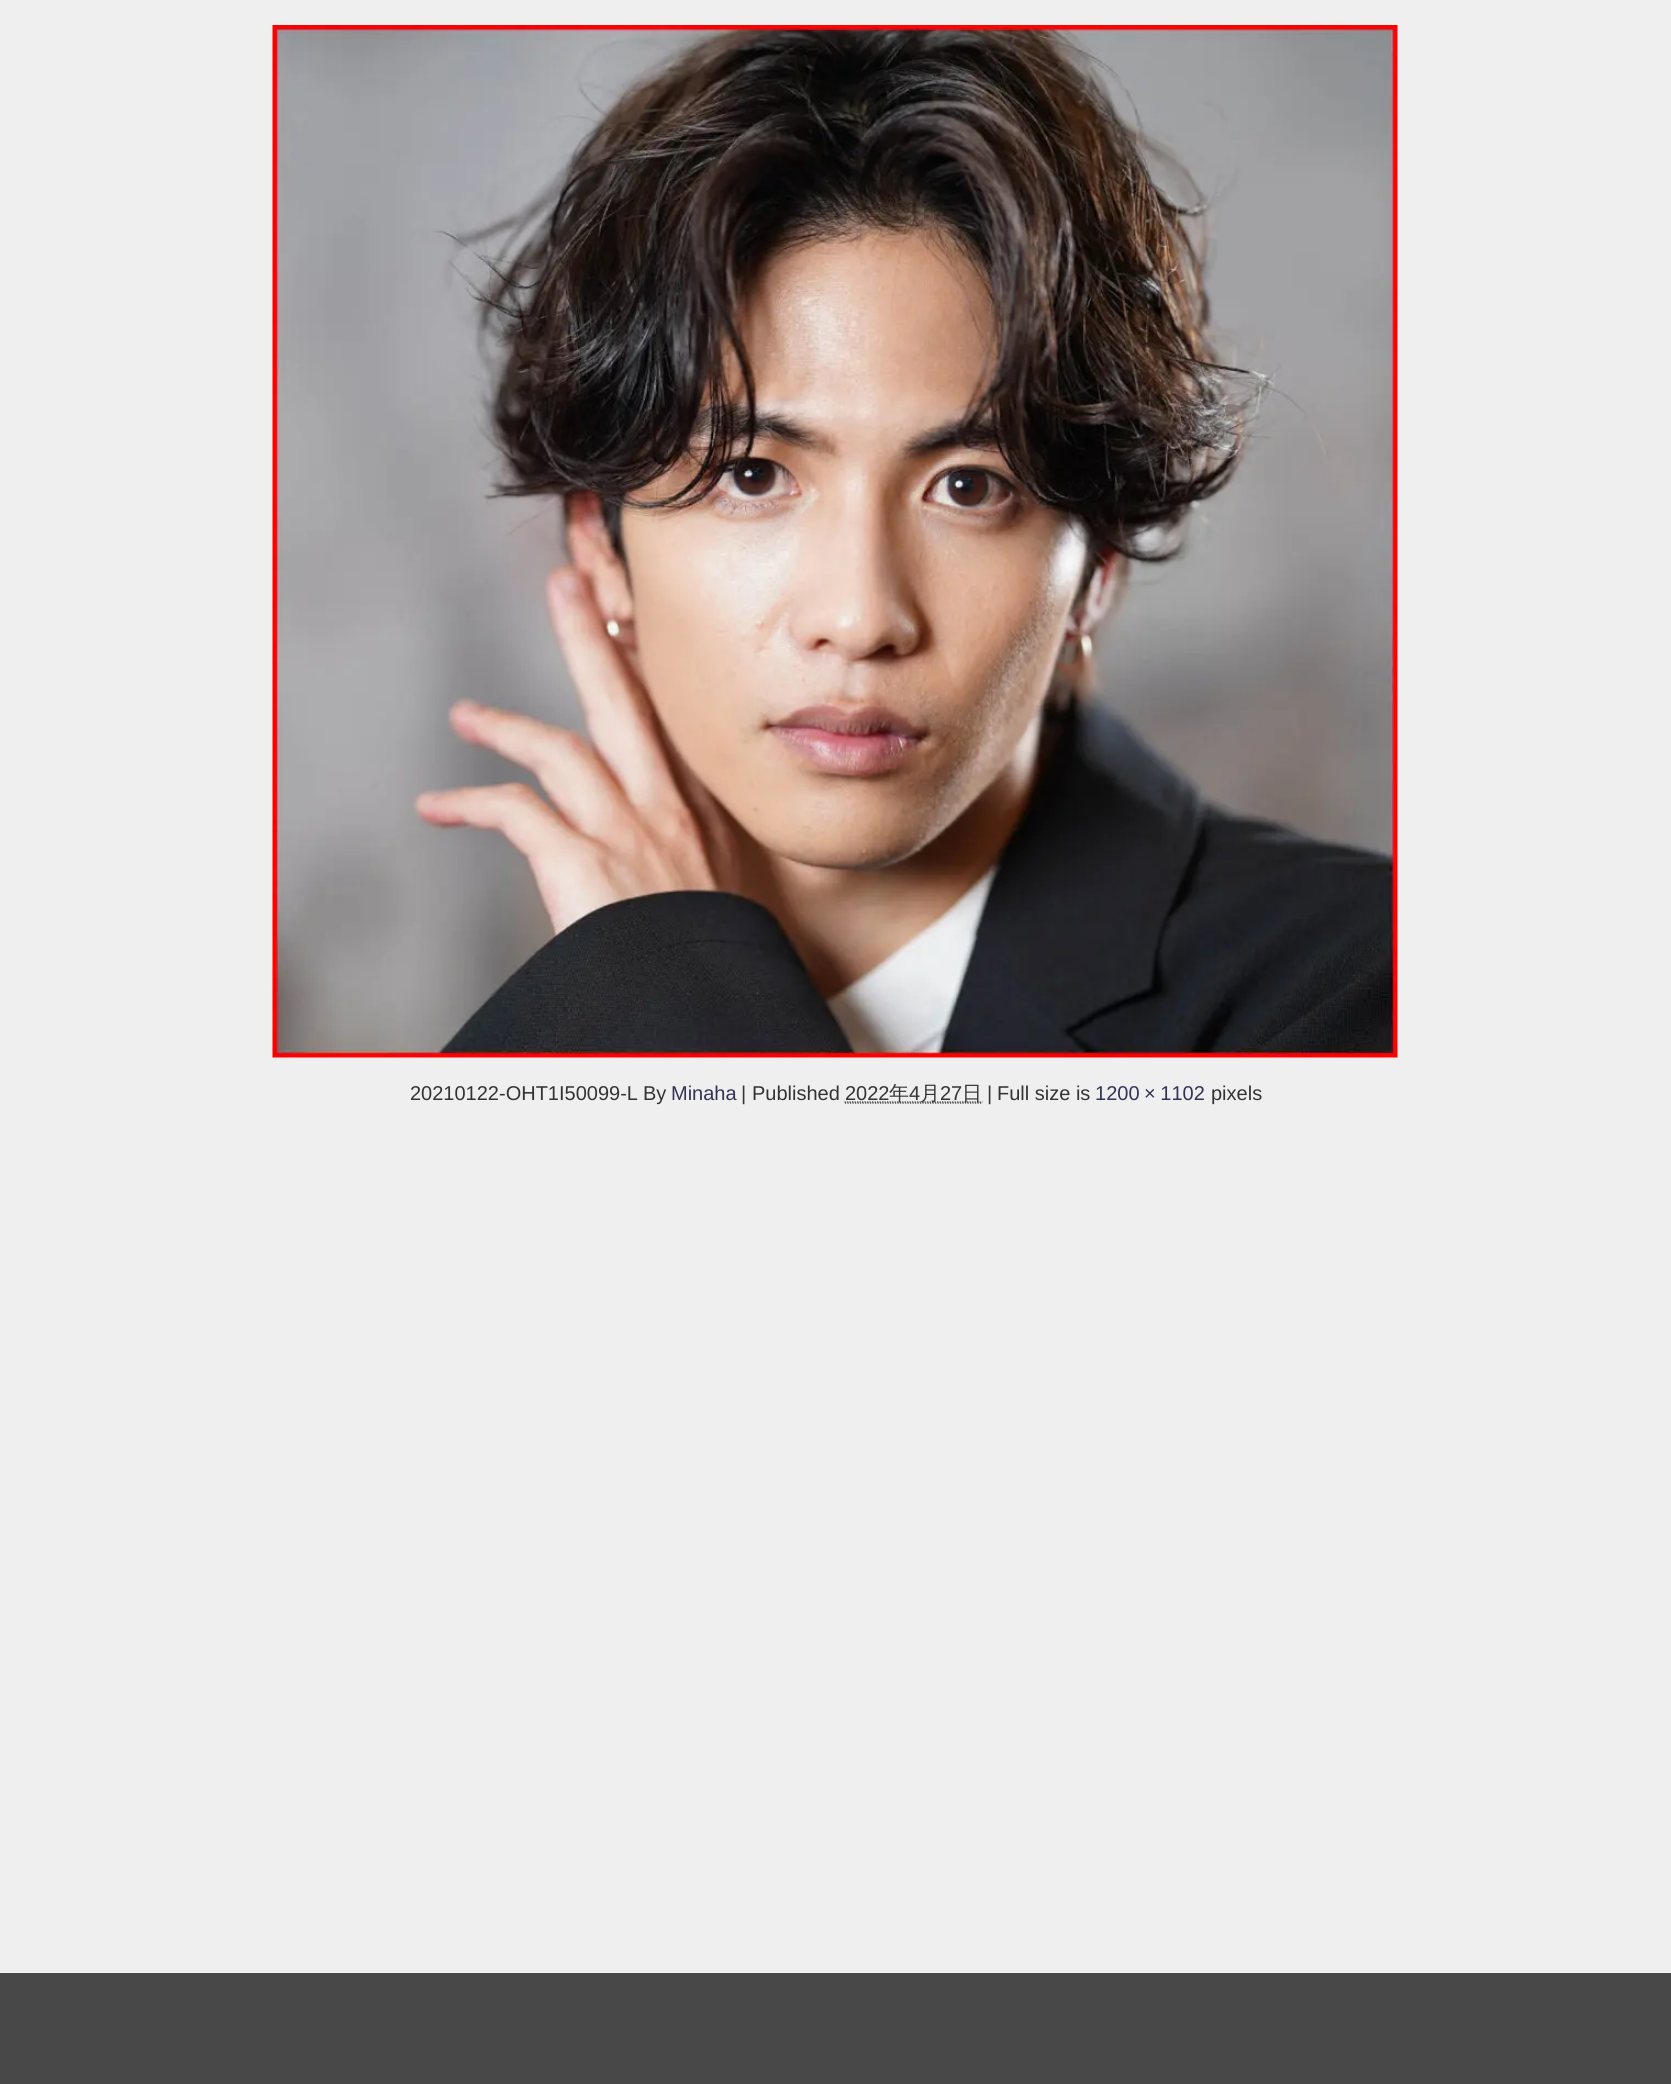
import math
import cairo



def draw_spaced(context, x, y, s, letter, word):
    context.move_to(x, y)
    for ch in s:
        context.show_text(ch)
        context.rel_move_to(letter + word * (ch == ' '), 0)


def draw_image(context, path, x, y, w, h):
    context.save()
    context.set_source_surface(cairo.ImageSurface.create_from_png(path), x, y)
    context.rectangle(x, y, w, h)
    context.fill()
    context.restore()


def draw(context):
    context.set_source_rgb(239 / 255, 239 / 255, 239 / 255)
    context.paint()
    draw_image(context, "images/1.png", 272, 25, 1126, 1033)
    context.new_path()
    context.move_to(845, 1103)
    context.line_to(982.5, 1103)
    context.set_source_rgb(51 / 255, 51 / 255, 51 / 255)
    context.set_line_width(1.2)
    context.set_dash([1.25, 1.25])
    context.stroke()
    context.new_path()
    context.move_to(844.5, 1102)
    context.line_to(982.5, 1102)
    context.stroke()
    context.set_source_rgb(72 / 255, 72 / 255, 72 / 255)
    context.rectangle(0, 1973, 1671, 111)
    context.fill()
    context.select_font_face("Liberation Sans")
    context.set_font_size(20)
    context.set_source_rgb(51 / 255, 51 / 255, 51 / 255)
    context.move_to(410, 1100)
    context.show_text("20210122-OHT1I50099-L")
    context.move_to(643, 1100)
    context.show_text("By")
    context.set_source_rgb(51 / 255, 51 / 255, 85 / 255)
    context.move_to(671, 1100)
    context.show_text("Minaha")
    context.set_source_rgb(51 / 255, 51 / 255, 51 / 255)
    context.move_to(741, 1100)
    context.show_text("|")
    context.move_to(752, 1100)
    context.show_text("Published")
    context.move_to(845, 1100)
    context.show_text("2022")
    context.select_font_face("WenQuanYi Zen Hei Medium")
    context.move_to(889, 1100)
    context.show_text("年")
    context.select_font_face("Liberation Sans")
    context.move_to(909, 1100)
    context.show_text("4")
    context.select_font_face("WenQuanYi Zen Hei Medium")
    context.move_to(920, 1100)
    context.show_text("月")
    context.select_font_face("Liberation Sans")
    context.move_to(940, 1100)
    context.show_text("27")
    context.select_font_face("WenQuanYi Zen Hei Medium")
    context.move_to(962, 1100)
    context.show_text("日")
    context.select_font_face("Liberation Sans")
    context.move_to(987, 1100)
    context.show_text("|")
    context.move_to(997, 1100)
    context.show_text("Full size is")
    context.set_source_rgb(51 / 255, 51 / 255, 85 / 255)
    draw_spaced(context, 1095, 1100, "1200 × 1102", 0, -1)
    context.set_source_rgb(51 / 255, 51 / 255, 51 / 255)
    context.move_to(1211, 1100)
    context.show_text("pixels")


surface = cairo.ImageSurface(cairo.Format.RGB24, 1671, 2084)
context = cairo.Context(surface)
options = cairo.FontOptions()
options.set_hint_metrics(cairo.HintMetrics.OFF)
options.set_hint_style(cairo.HintStyle.NONE)
context.set_font_options(options)
context.set_miter_limit(4)
draw(context)
surface.write_to_png("out.png")
